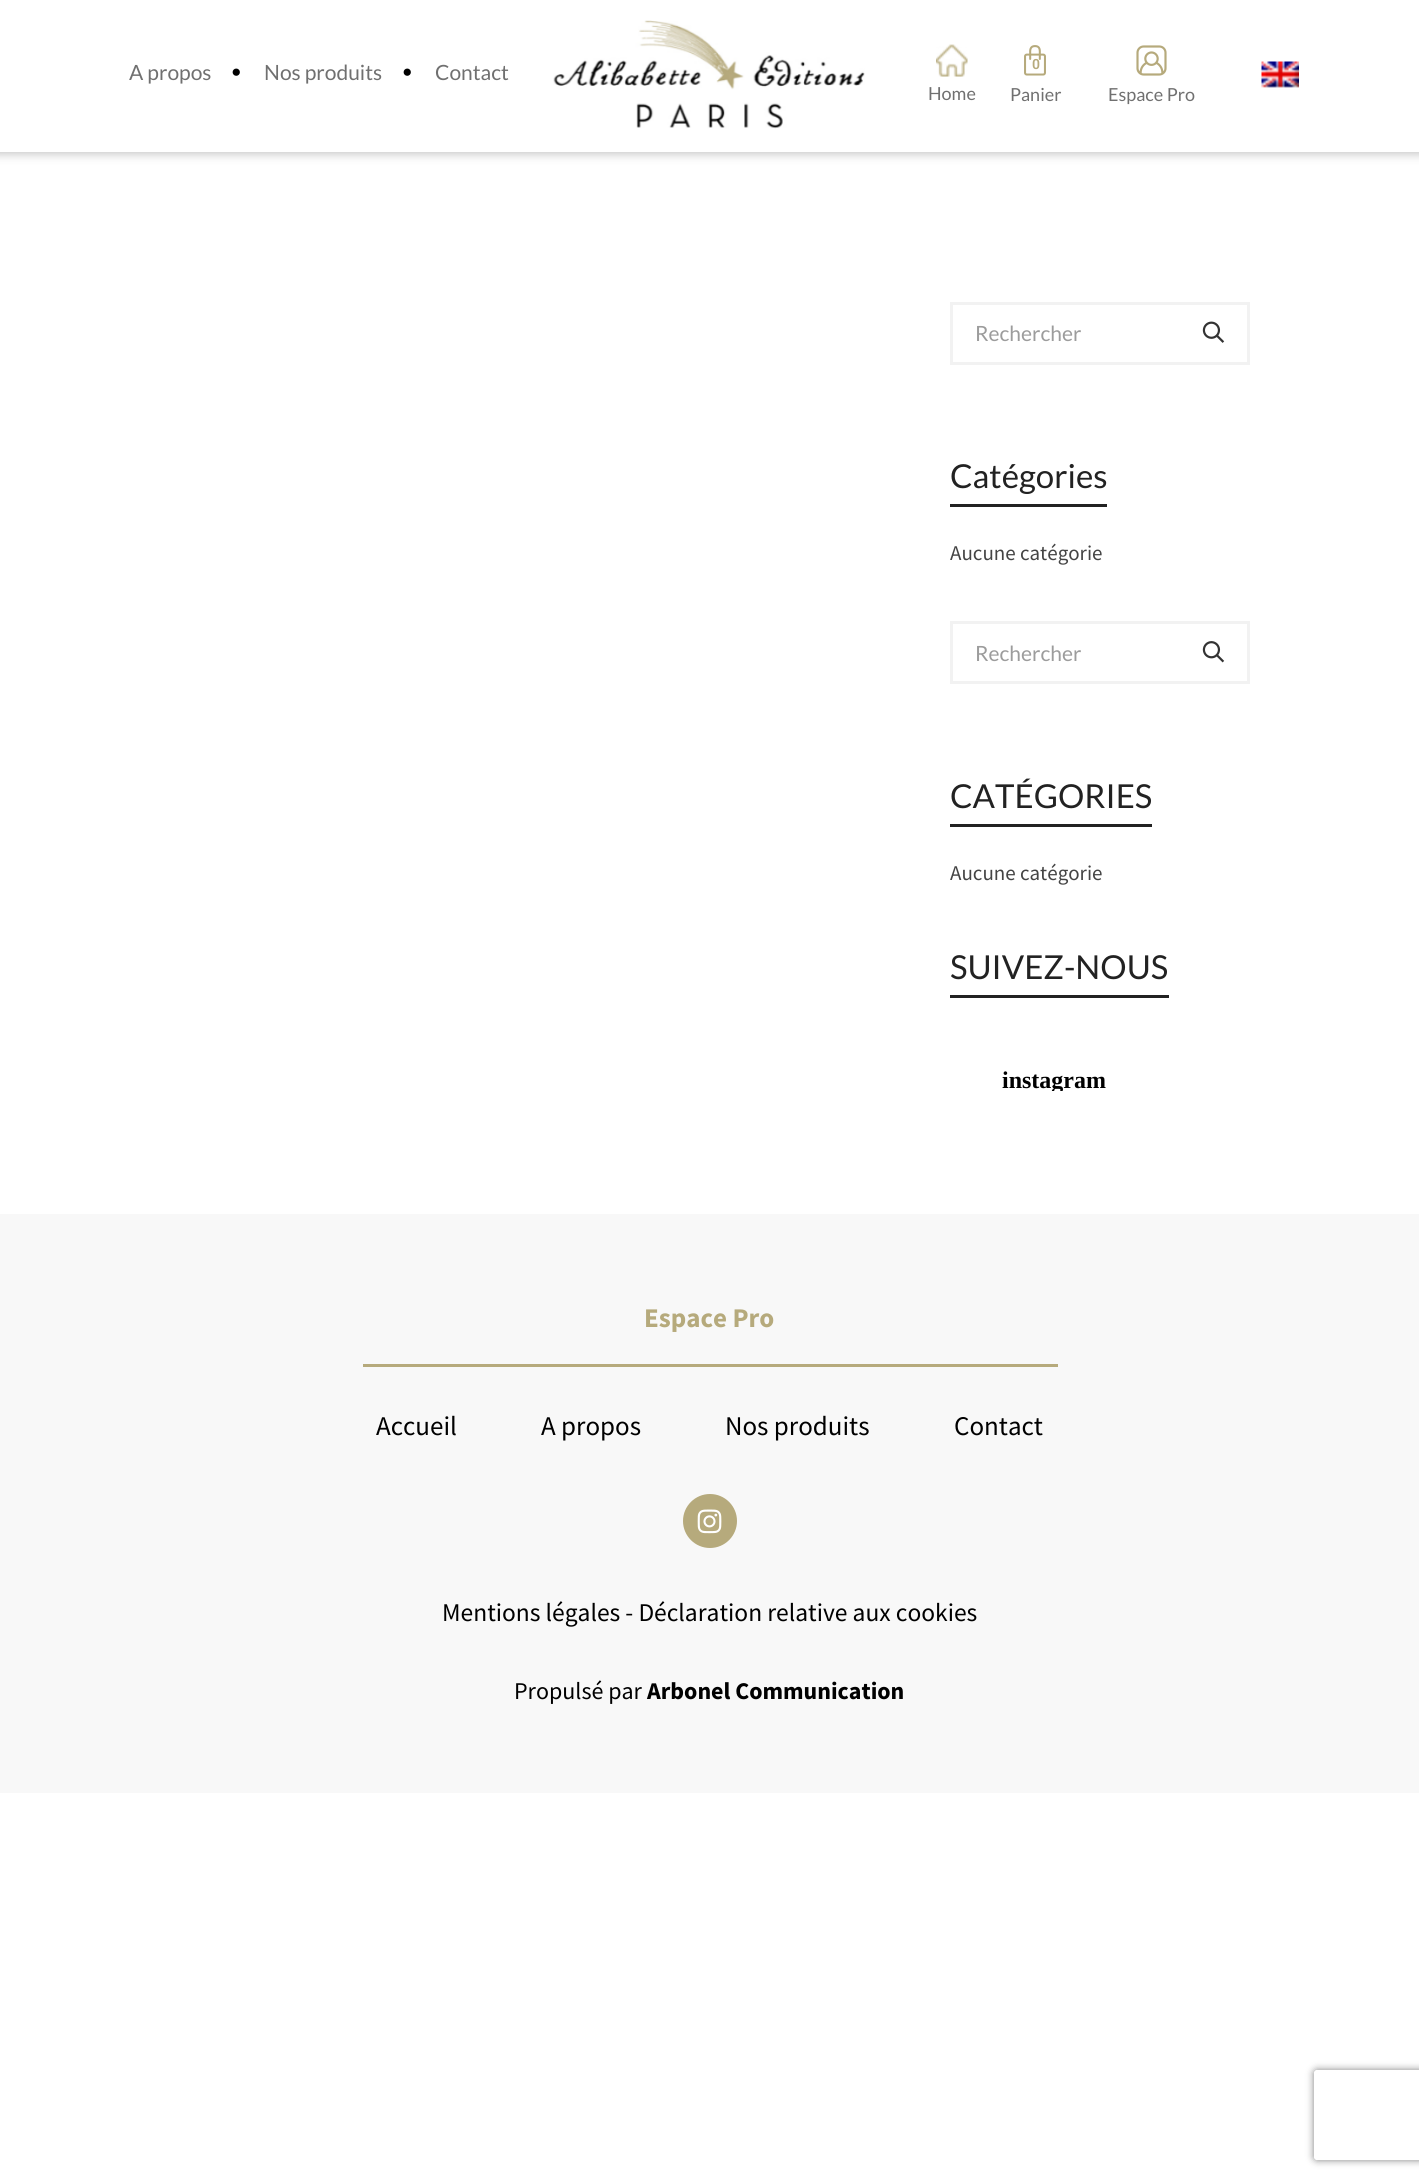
import math
import cairo



def rounded_rect(context, x, y, w, h, r):
    context.new_sub_path()
    for i, (u, v) in enumerate([(x + w - r, y + h - r), (x + r, y + h - r), (x + r, y + r), (x + w - r, y + r)]):
        context.arc(u, v, r, i * math.pi / 2, (i + 1) * math.pi / 2)
    context.close_path()


def draw_shadow(context, x, y, w, h, r, blur, alpha):
    context.push_group_with_content(cairo.Content.ALPHA)
    context.set_operator(cairo.Operator.SOURCE)
    for i in range(15, -16, -2):
        e = blur * i / 6
        if min(w, h) + 2 * e > 0:
            context.set_source_rgba(0, 0, 0, alpha * math.erfc((i - 1) / 8.5) / 2)
            rounded_rect(context, x - e, y - e, w + 2 * e, h + 2 * e, max(0, min(r + e + blur * .6, min(w, h) / 2 + e)))
            context.fill()
    context.mask(context.pop_group())


def draw_image(context, path, x, y, w, h):
    context.save()
    context.set_source_surface(cairo.ImageSurface.create_from_png(path), x, y)
    context.rectangle(x, y, w, h)
    context.fill()
    context.restore()


def draw(context):
    context.set_source_rgb(1, 1, 1)
    context.paint()
    context.set_source_rgb(0, 0, 0)
    draw_shadow(context, -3, -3, 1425, 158, 0, 4.5, 0.2)
    context.set_source_rgb(1, 1, 1)
    context.rectangle(0, 0, 1419, 152)
    context.fill()
    draw_image(context, "images/1.png", 232, 68, 8, 8)
    draw_image(context, "images/1.png", 403, 68, 8, 8)
    draw_image(context, "images/2.png", 553, 20, 312, 109)
    draw_image(context, "images/3.png", 936, 44, 32, 33)
    draw_image(context, "images/4.png", 1024, 45, 22, 31)
    draw_image(context, "images/5.png", 1261, 61, 38, 27)
    draw_image(context, "images/6.png", 1136, 45, 31, 31)
    context.rectangle(951.5, 303.5, 297, 60)
    context.set_source_rgb(242 / 255, 242 / 255, 242 / 255)
    context.set_line_width(3)
    context.stroke()
    draw_image(context, "images/7.png", 1202, 321, 23, 22)
    context.set_source_rgb(34 / 255, 34 / 255, 34 / 255)
    context.rectangle(950, 504, 157, 3)
    context.fill()
    context.rectangle(951.5, 622.5, 297, 60)
    context.set_source_rgb(242 / 255, 242 / 255, 242 / 255)
    context.stroke()
    draw_image(context, "images/8.png", 1202, 641, 23, 22)
    context.set_source_rgb(34 / 255, 34 / 255, 34 / 255)
    context.rectangle(950, 824, 202, 3)
    context.fill()
    context.rectangle(950, 995, 219, 3)
    context.fill()
    context.set_source_rgb(248 / 255, 248 / 255, 248 / 255)
    context.rectangle(0, 1214, 1419, 579)
    context.fill()
    context.set_source_rgb(182 / 255, 170 / 255, 124 / 255)
    context.rectangle(363, 1364, 695, 3)
    context.fill()
    context.arc(710, 1521, 27, 0, 2 * math.pi)
    context.fill()
    draw_image(context, "images/9.png", 697, 1509, 25, 25)
    context.save()
    context.set_fill_rule(cairo.FillRule.EVEN_ODD)
    context.new_path()
    context.move_to(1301, 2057)
    context.line_to(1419, 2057)
    context.line_to(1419, 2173)
    context.line_to(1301, 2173)
    context.close_path()
    context.move_to(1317, 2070)
    context.line_to(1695, 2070)
    context.curve_to(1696.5, 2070, 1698, 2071.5, 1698, 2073)
    context.line_to(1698, 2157)
    context.curve_to(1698, 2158.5, 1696.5, 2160, 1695, 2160)
    context.line_to(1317, 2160)
    context.curve_to(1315.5, 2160, 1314, 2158.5, 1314, 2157)
    context.line_to(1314, 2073)
    context.curve_to(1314, 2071.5, 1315.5, 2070, 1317, 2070)
    context.close_path()
    context.clip()
    context.set_source_rgb(128 / 255, 128 / 255, 128 / 255)
    draw_shadow(context, 1314, 2070, 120, 90, 3, 4, 1)
    context.restore()
    context.select_font_face("Lato")
    context.set_font_size(21)
    context.set_source_rgb(112 / 255, 112 / 255, 112 / 255)
    context.move_to(129, 80)
    context.show_text("A propos")
    context.move_to(264, 80)
    context.show_text("Nos produits")
    context.move_to(435, 80)
    context.show_text("Contact")
    context.set_font_size(18)
    context.move_to(928, 100)
    context.show_text("Home")
    context.select_font_face("Roboto SemiBold")
    context.set_font_size(14)
    context.set_source_rgb(182 / 255, 170 / 255, 124 / 255)
    context.move_to(1032, 69)
    context.show_text("0")
    context.select_font_face("Lato")
    context.set_font_size(18)
    context.set_source_rgb(112 / 255, 112 / 255, 112 / 255)
    context.move_to(1010, 101)
    context.show_text("Panier")
    context.move_to(1108, 101)
    context.show_text("Espace Pro")
    context.set_font_size(21)
    context.set_source_rgb(156 / 255, 156 / 255, 156 / 255)
    context.move_to(975, 341)
    context.show_text("Rechercher")
    context.set_font_size(33)
    context.set_source_rgb(34 / 255, 34 / 255, 34 / 255)
    context.move_to(950, 488)
    context.show_text("Catégories")
    context.select_font_face("Source Sans Pro")
    context.set_font_size(21)
    context.set_source_rgb(68 / 255, 68 / 255, 68 / 255)
    context.move_to(950, 560)
    context.show_text("Aucune catégorie")
    context.select_font_face("Lato")
    context.set_source_rgb(156 / 255, 156 / 255, 156 / 255)
    context.move_to(975, 661)
    context.show_text("Rechercher")
    context.set_font_size(33)
    context.set_source_rgb(34 / 255, 34 / 255, 34 / 255)
    context.move_to(950, 808)
    context.show_text("CATÉGORIES")
    context.select_font_face("Source Sans Pro")
    context.set_font_size(21)
    context.set_source_rgb(68 / 255, 68 / 255, 68 / 255)
    context.move_to(950, 880)
    context.show_text("Aucune catégorie")
    context.select_font_face("Lato")
    context.set_font_size(33)
    context.set_source_rgb(34 / 255, 34 / 255, 34 / 255)
    context.move_to(950, 979)
    context.show_text("SUIVEZ-NOUS")
    context.save()
    context.rectangle(950, 1037, 180, 54)
    context.clip()
    context.select_font_face("Liberation Serif", cairo.FontSlant.NORMAL, cairo.FontWeight.BOLD)
    context.set_font_size(24)
    context.set_source_rgb(0, 0, 0)
    context.move_to(1002, 1088)
    context.show_text("instagram")
    context.restore()
    context.select_font_face("Source Sans Pro", cairo.FontSlant.NORMAL, cairo.FontWeight.BOLD)
    context.set_font_size(27)
    context.set_source_rgb(182 / 255, 170 / 255, 124 / 255)
    context.move_to(644, 1327)
    context.show_text("Espace Pro")
    context.select_font_face("Source Sans Pro")
    context.set_source_rgb(0, 0, 0)
    context.move_to(376, 1435)
    context.show_text("Accueil")
    context.move_to(541, 1435)
    context.show_text("A propos")
    context.move_to(725, 1435)
    context.show_text("Nos produits")
    context.move_to(954, 1435)
    context.show_text("Contact")
    context.set_font_size(25.5)
    context.move_to(442, 1621)
    context.show_text("Mentions légales - Déclaration relative aux cookies")
    context.set_font_size(24)
    context.move_to(514, 1699)
    context.show_text("Propulsé par")
    context.select_font_face("Source Sans Pro", cairo.FontSlant.NORMAL, cairo.FontWeight.BOLD)
    context.move_to(647, 1699)
    context.show_text("Arbonel Communication")


surface = cairo.ImageSurface(cairo.Format.RGB24, 1419, 2181)
context = cairo.Context(surface)
options = cairo.FontOptions()
options.set_hint_metrics(cairo.HintMetrics.OFF)
options.set_hint_style(cairo.HintStyle.NONE)
context.set_font_options(options)
context.set_miter_limit(4)
draw(context)
surface.write_to_png("out.png")
